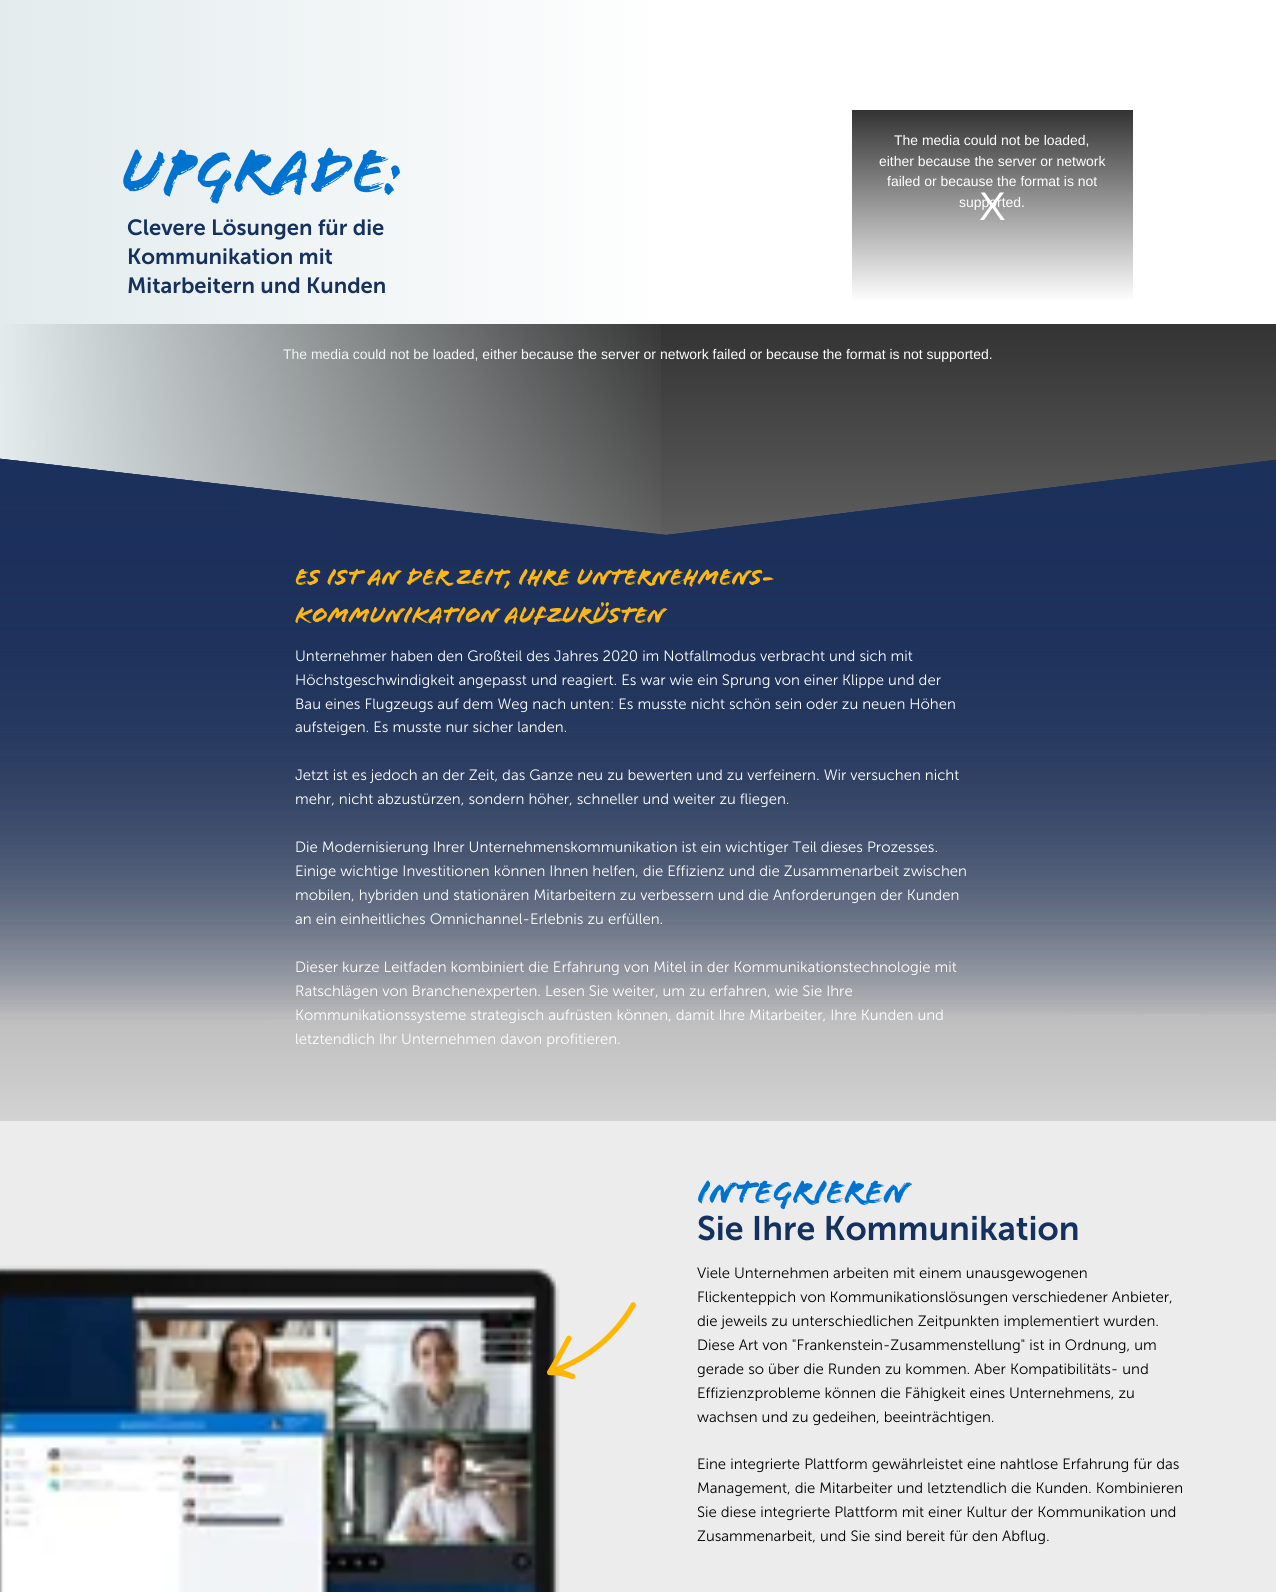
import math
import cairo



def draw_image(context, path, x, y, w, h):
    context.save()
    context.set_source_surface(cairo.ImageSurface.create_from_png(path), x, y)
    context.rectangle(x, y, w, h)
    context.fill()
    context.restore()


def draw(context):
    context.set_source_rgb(1, 1, 1)
    context.paint()
    gradient = cairo.LinearGradient(992, 110, 992, 302)
    gradient.add_color_stop_rgba(0, 51 / 255, 51 / 255, 51 / 255, 1)
    gradient.add_color_stop_rgba(1, 1, 1, 1, 1)
    context.set_source(gradient)
    context.rectangle(852, 110, 281, 190)
    context.fill()
    gradient = cairo.LinearGradient(638, 324, 638, 1342)
    gradient.add_color_stop_rgba(0, 51 / 255, 51 / 255, 51 / 255, 1)
    gradient.add_color_stop_rgba(1, 1, 1, 1, 1)
    context.set_source(gradient)
    context.rectangle(0, 324, 1276, 797)
    context.fill()
    context.set_source_rgb(236 / 255, 236 / 255, 237 / 255)
    context.rectangle(0, 1121, 1276, 471)
    context.fill()
    draw_image(context, "images/1.png", 0, 1265, 560, 327)
    draw_image(context, "images/2.png", 547, 1302, 89, 78)
    context.select_font_face("Liberation Sans")
    context.set_font_size(13.95)
    context.set_source_rgb(1, 1, 1)
    context.move_to(894, 145)
    context.show_text("The media could not be loaded,")
    context.move_to(879, 166)
    context.show_text("either because the server or network")
    context.move_to(887, 186)
    context.show_text("failed or because the format is not")
    context.set_font_size(40)
    context.move_to(979, 220)
    context.show_text("X")
    context.set_font_size(13.95)
    context.move_to(959, 207)
    context.show_text("supported.")
    context.move_to(283, 359)
    context.show_text("The media could not be loaded, either because the server or network failed or because the format is not supported.")
    gradient = cairo.LinearGradient(0, 268, 676, 268)
    gradient.add_color_stop_rgba(0, 227 / 255, 235 / 255, 237 / 255, 1)
    gradient.add_color_stop_rgba(1, 227 / 255, 235 / 255, 237 / 255, 0)
    context.set_source(gradient)
    context.rectangle(0, 0, 661, 537)
    context.fill()
    context.select_font_face("Museo Sans SemiBold")
    context.set_font_size(22)
    context.set_source_rgb(21 / 255, 50 / 255, 95 / 255)
    context.move_to(127, 293)
    context.show_text("Mitarbeitern und Kunden")
    context.move_to(127, 264)
    context.show_text("Kommunikation mit")
    context.move_to(127, 235)
    context.show_text("Clevere Lösungen für die")
    context.select_font_face("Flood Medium")
    context.set_font_size(64)
    context.set_source_rgb(0, 115 / 255, 208 / 255)
    context.move_to(121, 190)
    context.show_text("UPGRADE:")
    gradient = cairo.LinearGradient(637, 1021, 637, 457)
    gradient.add_color_stop_rgba(0, 27 / 255, 48 / 255, 91 / 255, 0)
    gradient.add_color_stop_rgba(1, 27 / 255, 48 / 255, 91 / 255, 1)
    context.set_source(gradient)
    context.new_path()
    context.move_to(-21, 1021)
    context.line_to(-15, 457)
    context.line_to(666, 535)
    context.line_to(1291, 458)
    context.line_to(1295, 1014)
    context.close_path()
    context.fill()
    context.new_path()
    context.move_to(-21, 1021)
    context.line_to(-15, 457)
    context.line_to(666, 535)
    context.line_to(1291, 458)
    context.line_to(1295, 1014)
    context.close_path()
    context.fill()
    context.new_path()
    context.move_to(-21, 1021)
    context.line_to(-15, 457)
    context.line_to(666, 535)
    context.line_to(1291, 458)
    context.line_to(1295, 1014)
    context.close_path()
    context.fill()
    context.set_font_size(23.9)
    context.set_source_rgb(253 / 255, 183 / 255, 20 / 255)
    context.move_to(295, 584)
    context.show_text("Es ist an der Zeit, Ihre Unternehmens-")
    context.move_to(295, 622)
    context.show_text("kommunikation aufzurüsten")
    context.select_font_face("Museo Sans Light")
    context.set_font_size(14.95)
    context.set_source_rgb(1, 1, 1)
    context.move_to(295, 661)
    context.show_text("Unternehmer haben den Großteil des Jahres 2020 im Notfallmodus verbracht und sich mit")
    context.move_to(295, 685)
    context.show_text("Höchstgeschwindigkeit angepasst und reagiert. Es war wie ein Sprung von einer Klippe und der")
    context.move_to(295, 709)
    context.show_text("Bau eines Flugzeugs auf dem Weg nach unten: Es musste nicht schön sein oder zu neuen Höhen")
    context.move_to(295, 732)
    context.show_text("aufsteigen. Es musste nur sicher landen.")
    context.move_to(295, 780)
    context.show_text("Jetzt ist es jedoch an der Zeit, das Ganze neu zu bewerten und zu verfeinern. Wir versuchen nicht")
    context.move_to(295, 804)
    context.show_text("mehr, nicht abzustürzen, sondern höher, schneller und weiter zu fliegen.")
    context.move_to(295, 852)
    context.show_text("Die Modernisierung Ihrer Unternehmenskommunikation ist ein wichtiger Teil dieses Prozesses.")
    context.move_to(295, 876)
    context.show_text("Einige wichtige Investitionen können Ihnen helfen, die Effizienz und die Zusammenarbeit zwischen")
    context.move_to(295, 900)
    context.show_text("mobilen, hybriden und stationären Mitarbeitern zu verbessern und die Anforderungen der Kunden")
    context.move_to(295, 924)
    context.show_text("an ein einheitliches Omnichannel-Erlebnis zu erfüllen.")
    context.move_to(295, 972)
    context.show_text("Dieser kurze Leitfaden kombiniert die Erfahrung von Mitel in der Kommunikationstechnologie mit")
    context.move_to(295, 996)
    context.show_text("Ratschlägen von Branchenexperten. Lesen Sie weiter, um zu erfahren, wie Sie Ihre")
    context.move_to(295, 1020)
    context.show_text("Kommunikationssysteme strategisch aufrüsten können, damit Ihre Mitarbeiter, Ihre Kunden und")
    context.move_to(295, 1044)
    context.show_text("letztendlich Ihr Unternehmen davon profitieren.")
    context.select_font_face("Flood Medium")
    context.set_font_size(33.9)
    context.set_source_rgb(0, 115 / 255, 208 / 255)
    context.move_to(697, 1202)
    context.show_text("INTEGRIEREN")
    context.select_font_face("Museo Sans SemiBold")
    context.set_source_rgb(21 / 255, 50 / 255, 95 / 255)
    context.move_to(697, 1240)
    context.show_text("Sie Ihre Kommunikation")
    context.select_font_face("Museo Sans Light")
    context.set_font_size(14.95)
    context.set_source_rgb(0, 0, 0)
    context.move_to(697, 1278)
    context.show_text("Viele Unternehmen arbeiten mit einem unausgewogenen")
    context.move_to(697, 1302)
    context.show_text("Flickenteppich von Kommunikationslösungen verschiedener Anbieter,")
    context.move_to(697, 1326)
    context.show_text("die jeweils zu unterschiedlichen Zeitpunkten implementiert wurden.")
    context.move_to(697, 1350)
    context.show_text("Diese Art von \"Frankenstein-Zusammenstellung\" ist in Ordnung, um")
    context.move_to(697, 1374)
    context.show_text("gerade so über die Runden zu kommen. Aber Kompatibilitäts- und")
    context.move_to(697, 1398)
    context.show_text("Effizienzprobleme können die Fähigkeit eines Unternehmens, zu")
    context.move_to(697, 1422)
    context.show_text("wachsen und zu gedeihen, beeinträchtigen.")
    context.move_to(697, 1469)
    context.show_text("Eine integrierte Plattform gewährleistet eine nahtlose Erfahrung für das")
    context.move_to(697, 1493)
    context.show_text("Management, die Mitarbeiter und letztendlich die Kunden. Kombinieren")
    context.move_to(697, 1517)
    context.show_text("Sie diese integrierte Plattform mit einer Kultur der Kommunikation und")
    context.move_to(697, 1541)
    context.show_text("Zusammenarbeit, und Sie sind bereit für den Abflug.")


surface = cairo.ImageSurface(cairo.Format.RGB24, 1276, 1592)
context = cairo.Context(surface)
options = cairo.FontOptions()
options.set_hint_metrics(cairo.HintMetrics.OFF)
options.set_hint_style(cairo.HintStyle.NONE)
context.set_font_options(options)
context.set_miter_limit(4)
draw(context)
surface.write_to_png("out.png")
